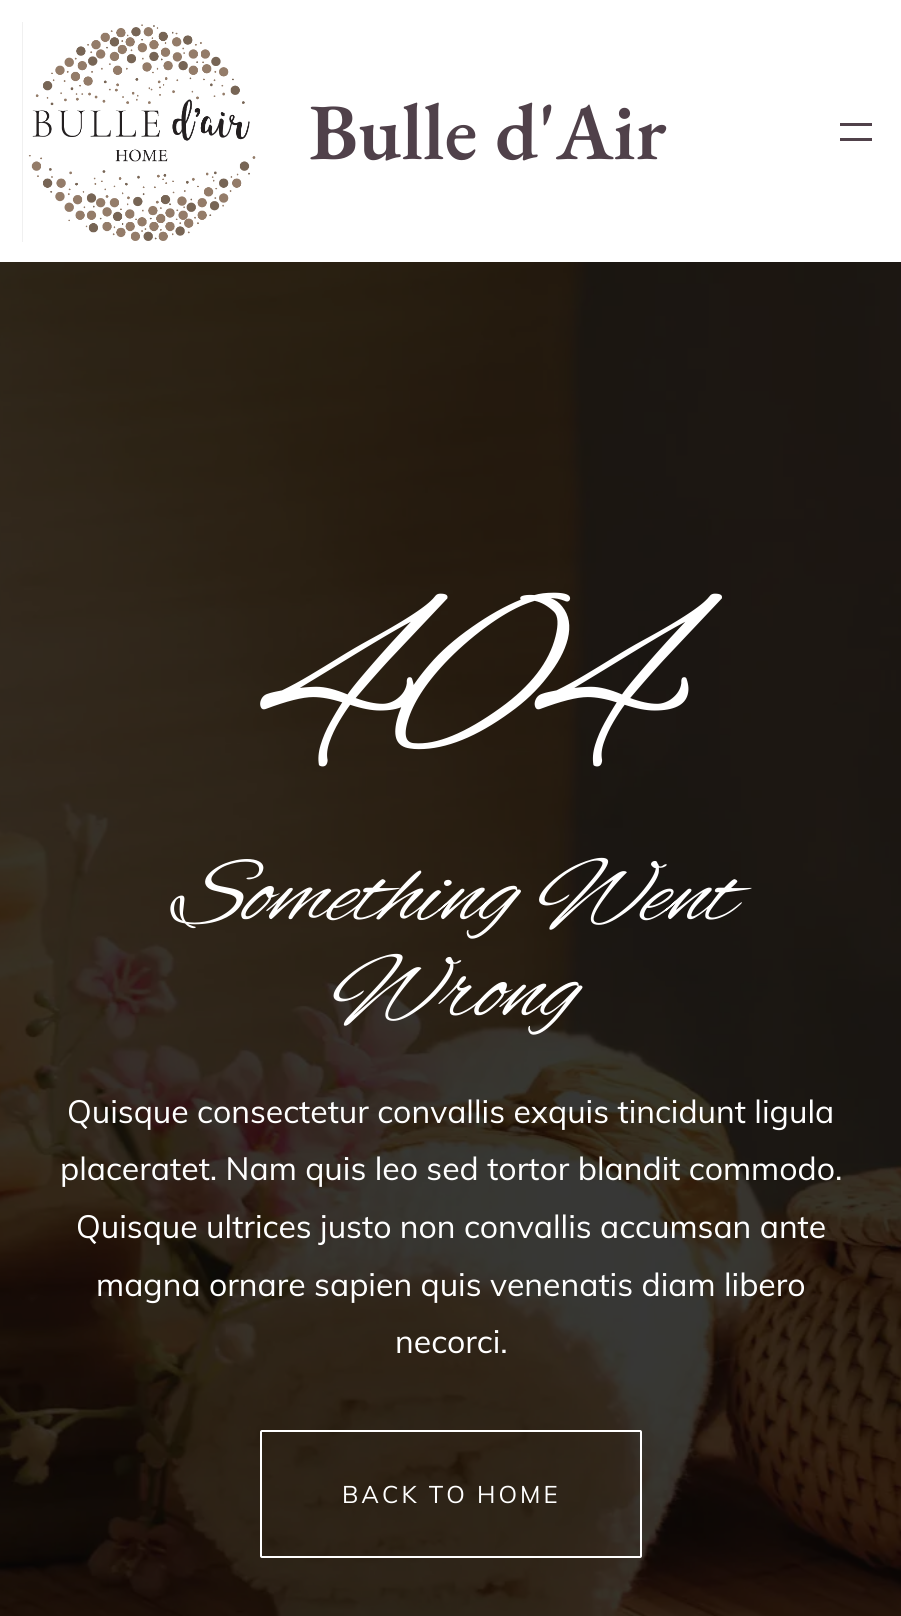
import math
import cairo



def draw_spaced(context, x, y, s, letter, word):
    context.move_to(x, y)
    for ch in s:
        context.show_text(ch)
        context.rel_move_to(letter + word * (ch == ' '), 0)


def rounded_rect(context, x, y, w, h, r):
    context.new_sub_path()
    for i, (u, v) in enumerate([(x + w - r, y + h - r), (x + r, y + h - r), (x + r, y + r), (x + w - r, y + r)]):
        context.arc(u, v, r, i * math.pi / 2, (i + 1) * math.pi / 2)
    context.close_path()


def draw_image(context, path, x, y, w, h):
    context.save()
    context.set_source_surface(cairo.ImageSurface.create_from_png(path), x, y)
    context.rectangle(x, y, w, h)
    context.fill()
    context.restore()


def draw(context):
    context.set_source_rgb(1, 1, 1)
    context.paint()
    draw_image(context, "images/1.png", 22, 22, 234, 220)
    context.set_source_rgb(80 / 255, 65 / 255, 74 / 255)
    context.rectangle(840, 123, 32, 3)
    context.fill()
    context.rectangle(840, 138, 32, 3)
    context.fill()
    draw_image(context, "images/2.png", 0, 262, 901, 1354)
    rounded_rect(context, 261, 1431, 380, 126, 1)
    context.set_source_rgb(1, 1, 1)
    context.stroke()
    context.select_font_face("EB Garamond SemiBold")
    context.set_font_size(80)
    context.set_source_rgb(80 / 255, 65 / 255, 74 / 255)
    context.move_to(309, 159)
    context.show_text("Bulle d'Air")
    context.select_font_face("Alex Brush", cairo.FontSlant.ITALIC)
    context.set_font_size(240)
    context.set_source_rgb(1, 1, 1)
    context.move_to(246, 747)
    context.show_text("404")
    context.set_font_size(96)
    context.move_to(169, 919)
    context.show_text("Something Went")
    context.move_to(327, 1015)
    context.show_text("Wrong")
    context.select_font_face("Muli")
    context.set_font_size(32)
    context.move_to(67, 1123)
    context.show_text("Quisque consectetur convallis exquis tincidunt ligula")
    context.move_to(60, 1180)
    context.show_text("placeratet. Nam quis leo sed tortor blandit commodo.")
    context.move_to(76, 1238)
    context.show_text("Quisque ultrices justo non convallis accumsan ante")
    context.move_to(96, 1296)
    context.show_text("magna ornare sapien quis venenatis diam libero")
    context.move_to(395, 1353)
    context.show_text("necorci.")
    context.set_font_size(24)
    draw_spaced(context, 342, 1503, "BACK TO HOME", 3, 0)


surface = cairo.ImageSurface(cairo.Format.RGB24, 901, 1616)
context = cairo.Context(surface)
options = cairo.FontOptions()
options.set_hint_metrics(cairo.HintMetrics.OFF)
options.set_hint_style(cairo.HintStyle.NONE)
context.set_font_options(options)
context.set_miter_limit(4)
draw(context)
surface.write_to_png("out.png")
